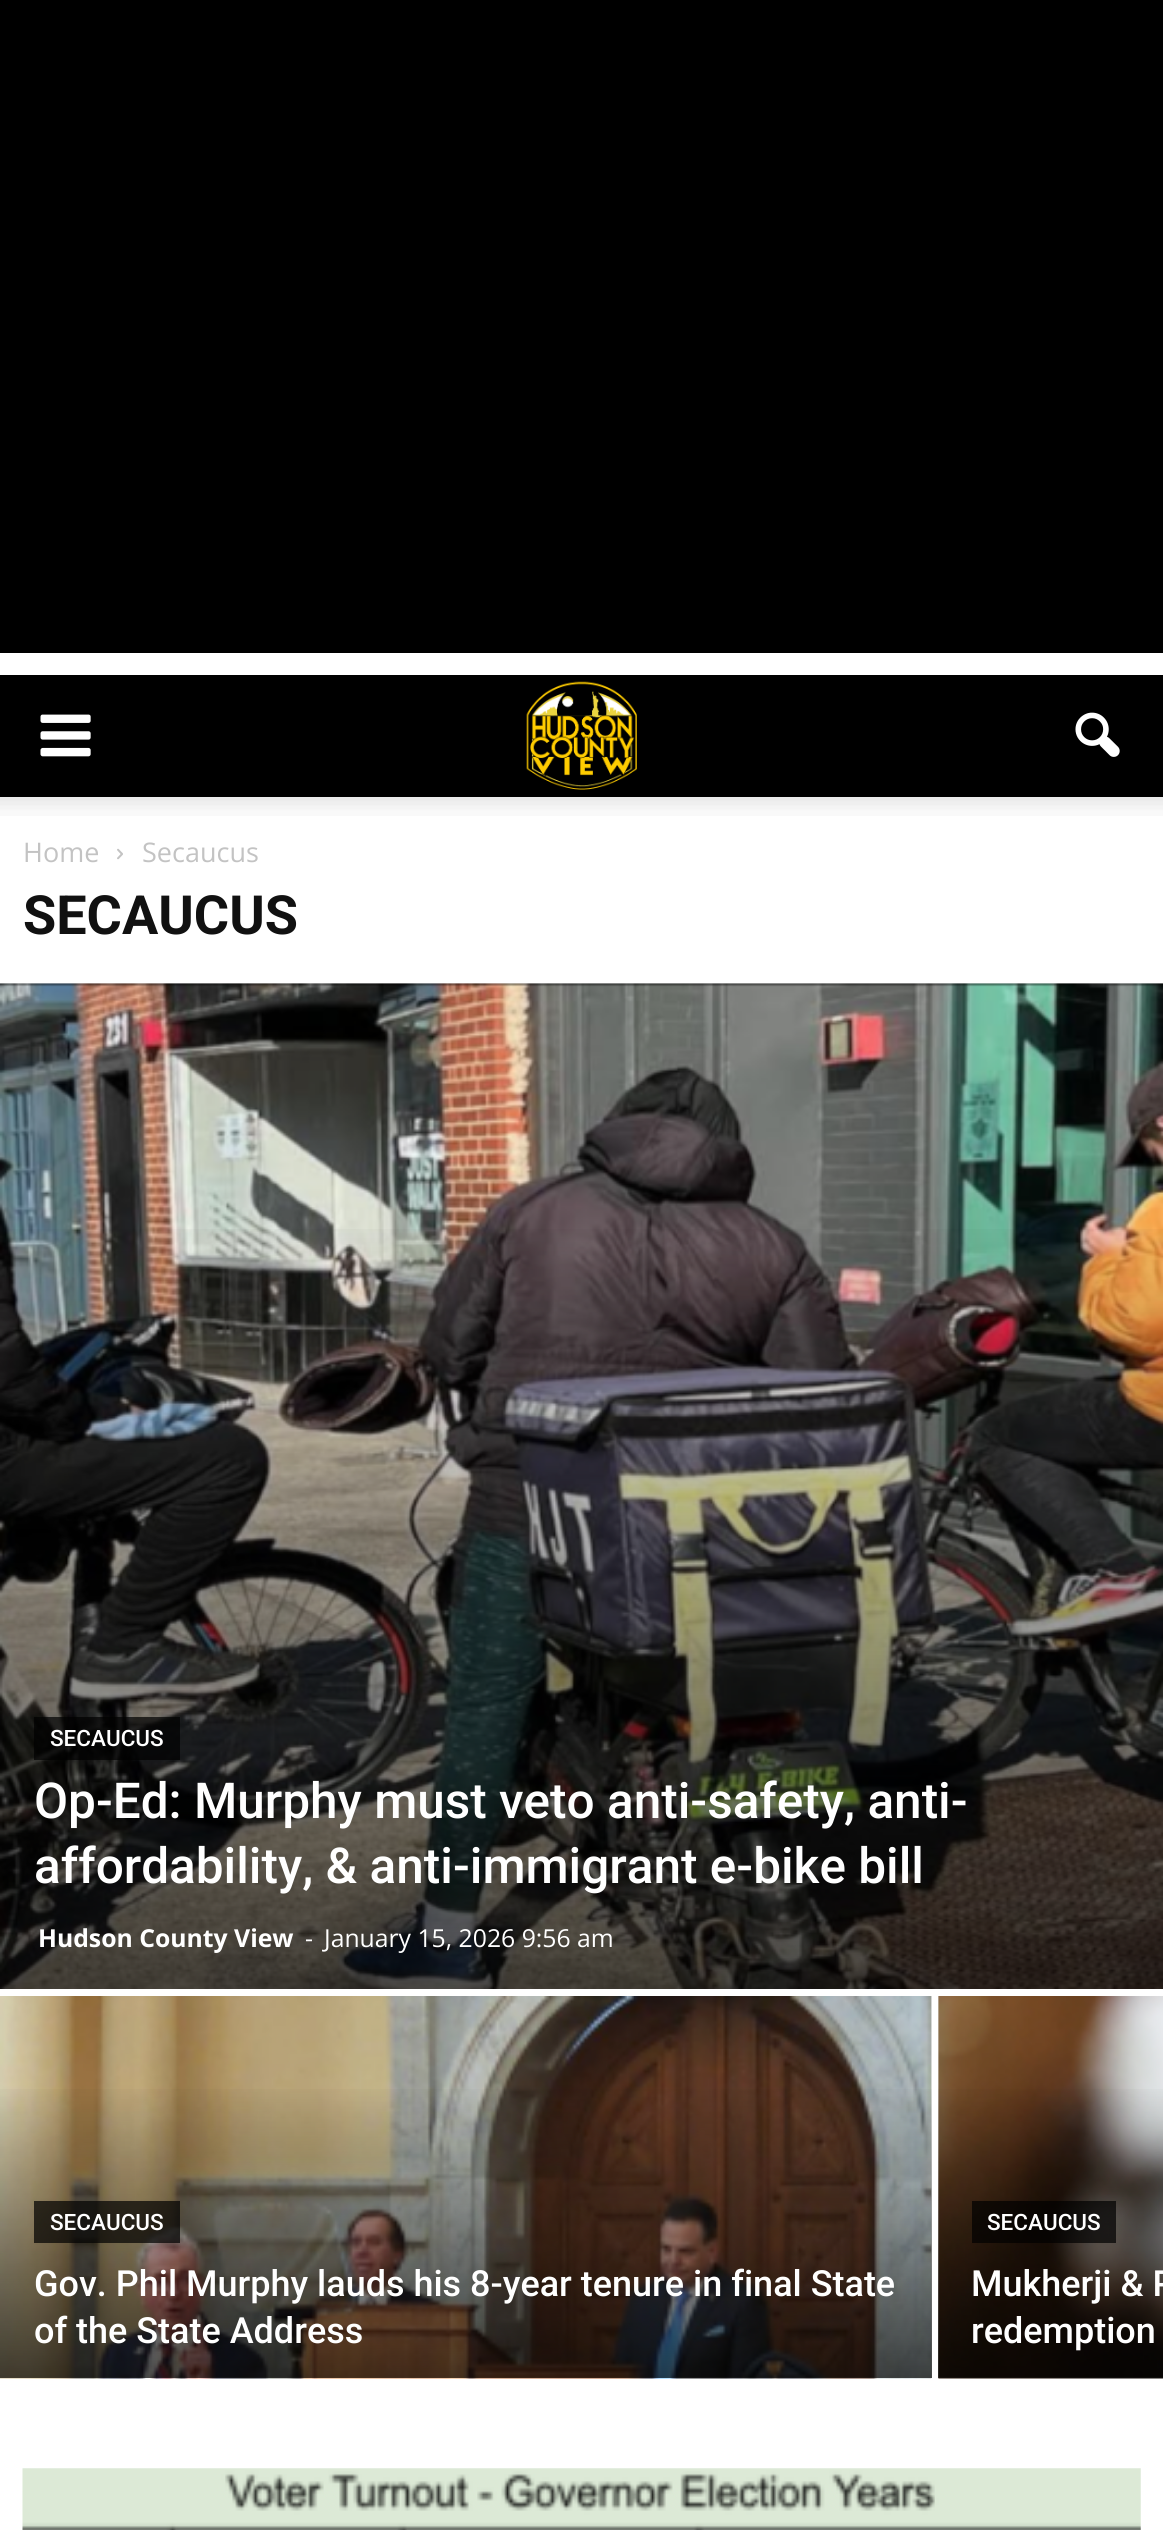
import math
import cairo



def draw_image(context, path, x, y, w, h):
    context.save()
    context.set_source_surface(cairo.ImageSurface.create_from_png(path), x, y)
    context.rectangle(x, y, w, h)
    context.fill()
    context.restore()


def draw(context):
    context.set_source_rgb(1, 1, 1)
    context.paint()
    context.set_source_rgb(0, 0, 0)
    context.rectangle(0, 0, 1163, 653)
    context.fill()
    context.rectangle(0, 675, 1163, 122)
    context.fill()
    draw_image(context, "images/1.png", 40, 714, 51, 43)
    draw_image(context, "images/2.png", 526, 681, 111, 109)
    draw_image(context, "images/3.png", 1075, 712, 45, 45)
    draw_image(context, "images/4.png", 0, 797, 1163, 19)
    draw_image(context, "images/5.png", 117, 848, 6, 12)
    context.set_source_rgb(229 / 255, 229 / 255, 229 / 255)
    context.rectangle(0, 983, 1163, 1)
    context.fill()
    draw_image(context, "images/6.png", 0, 983, 1163, 1006)
    gradient = cairo.LinearGradient(582, 682, 582, 1989)
    gradient.add_color_stop_rgba(0.4, 0, 0, 0, 0)
    gradient.add_color_stop_rgba(1, 0, 0, 0, 0.7)
    context.set_source(gradient)
    context.rectangle(0, 1229, 1163, 760)
    context.fill()
    context.set_source_rgba(0, 0, 0, 0.7)
    context.rectangle(34, 1717, 146, 43)
    context.fill()
    context.set_source_rgb(229 / 255, 229 / 255, 229 / 255)
    context.rectangle(0, 1996, 932, 382)
    context.fill()
    draw_image(context, "images/7.png", 0, 1996, 932, 383)
    gradient = cairo.LinearGradient(466, 1881, 466, 2378)
    gradient.add_color_stop_rgba(0.4, 0, 0, 0, 0)
    gradient.add_color_stop_rgba(1, 0, 0, 0, 0.7)
    context.set_source(gradient)
    context.rectangle(0, 2089, 932, 289)
    context.fill()
    context.set_source_rgba(0, 0, 0, 0.7)
    context.rectangle(34, 2201, 146, 42)
    context.fill()
    context.set_source_rgb(229 / 255, 229 / 255, 229 / 255)
    context.rectangle(938, 1996, 225, 382)
    context.fill()
    draw_image(context, "images/8.png", 938, 1996, 225, 383)
    gradient = cairo.LinearGradient(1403, 1881, 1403, 2378)
    gradient.add_color_stop_rgba(0.4, 0, 0, 0, 0)
    gradient.add_color_stop_rgba(1, 0, 0, 0, 0.7)
    context.set_source(gradient)
    context.rectangle(938, 2089, 225, 289)
    context.fill()
    context.set_source_rgba(0, 0, 0, 0.7)
    context.rectangle(972, 2201, 144, 42)
    context.fill()
    draw_image(context, "images/9.png", 22, 2468, 1119, 62)
    context.select_font_face("Open Sans")
    context.set_font_size(27)
    context.set_source_rgb(195 / 255, 195 / 255, 195 / 255)
    context.move_to(23, 862)
    context.show_text("Home")
    context.move_to(142, 862)
    context.show_text("Secaucus")
    context.select_font_face("Roboto", cairo.FontSlant.NORMAL, cairo.FontWeight.BOLD)
    context.set_font_size(54)
    context.set_source_rgb(17 / 255, 17 / 255, 17 / 255)
    context.move_to(23, 934)
    context.show_text("SECAUCUS")
    context.select_font_face("Roboto Medium")
    context.set_font_size(22.5)
    context.set_source_rgb(1, 1, 1)
    context.move_to(50, 1746)
    context.show_text("SECAUCUS")
    context.set_font_size(49.5)
    context.move_to(34, 1818)
    context.show_text("Op-Ed: Murphy must veto anti-safety, anti-")
    context.move_to(34, 1883)
    context.show_text("affordability, & anti-immigrant e-bike bill")
    context.select_font_face("Open Sans", cairo.FontSlant.NORMAL, cairo.FontWeight.BOLD)
    context.set_font_size(24.75)
    context.move_to(38, 1947)
    context.show_text("Hudson County View")
    context.select_font_face("Open Sans")
    context.move_to(305, 1947)
    context.show_text("-")
    context.move_to(324, 1947)
    context.show_text("January 15, 2026 9:56 am")
    context.select_font_face("Roboto Medium")
    context.set_font_size(22.5)
    context.move_to(50, 2230)
    context.show_text("SECAUCUS")
    context.set_font_size(36)
    context.move_to(34, 2296)
    context.show_text("Gov. Phil Murphy lauds his 8-year tenure in final State")
    context.move_to(34, 2343)
    context.show_text("of the State Address")
    context.set_font_size(22.5)
    context.move_to(987, 2230)
    context.show_text("SECAUCUS")
    context.set_font_size(36)
    context.move_to(971, 2296)
    context.show_text("Mukherji & P")
    context.move_to(971, 2343)
    context.show_text("redemption")


surface = cairo.ImageSurface(cairo.Format.RGB24, 1163, 2530)
context = cairo.Context(surface)
options = cairo.FontOptions()
options.set_hint_metrics(cairo.HintMetrics.OFF)
options.set_hint_style(cairo.HintStyle.NONE)
context.set_font_options(options)
context.set_miter_limit(4)
draw(context)
surface.write_to_png("out.png")
